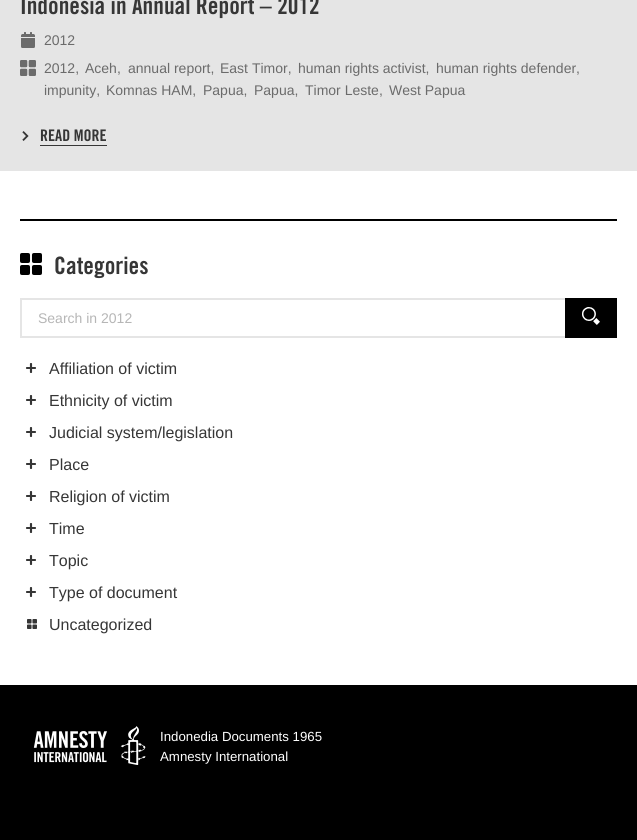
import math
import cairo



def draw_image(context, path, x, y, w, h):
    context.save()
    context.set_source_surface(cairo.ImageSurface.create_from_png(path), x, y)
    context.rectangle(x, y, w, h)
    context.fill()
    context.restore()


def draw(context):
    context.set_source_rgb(1, 1, 1)
    context.paint()
    context.set_source_rgb(229 / 255, 229 / 255, 229 / 255)
    context.rectangle(0, 0, 637, 171)
    context.fill()
    draw_image(context, "images/1.png", 21, 32, 14, 16)
    draw_image(context, "images/2.png", 20, 60, 16, 16)
    draw_image(context, "images/3.png", 22, 131, 7, 10)
    context.set_source_rgb(54 / 255, 54 / 255, 54 / 255)
    context.rectangle(40, 145, 67, 1)
    context.fill()
    context.set_source_rgb(0, 0, 0)
    context.rectangle(20, 219, 597, 2)
    context.fill()
    draw_image(context, "images/4.png", 20, 253, 22, 22)
    context.set_source_rgb(229 / 255, 229 / 255, 229 / 255)
    context.rectangle(20, 298, 545, 2)
    context.fill()
    context.rectangle(20, 336, 545, 2)
    context.fill()
    context.rectangle(20, 298, 2, 40)
    context.fill()
    context.set_source_rgb(0, 0, 0)
    context.rectangle(565, 298, 52, 40)
    context.fill()
    draw_image(context, "images/5.png", 582, 307, 18, 18)
    draw_image(context, "images/6.png", 26, 363, 10, 10)
    draw_image(context, "images/6.png", 26, 395, 10, 10)
    draw_image(context, "images/6.png", 26, 427, 10, 10)
    draw_image(context, "images/6.png", 26, 459, 10, 10)
    draw_image(context, "images/6.png", 26, 491, 10, 10)
    draw_image(context, "images/6.png", 26, 523, 10, 10)
    draw_image(context, "images/6.png", 26, 555, 10, 10)
    draw_image(context, "images/6.png", 26, 587, 10, 10)
    draw_image(context, "images/7.png", 27, 619, 10, 10)
    context.rectangle(0, 685, 637, 155)
    context.fill()
    draw_image(context, "images/8.png", 33, 726, 113, 39)
    context.select_font_face("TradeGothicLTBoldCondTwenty")
    context.set_font_size(24)
    context.set_source_rgb(54 / 255, 54 / 255, 54 / 255)
    context.move_to(20, 14)
    context.show_text("Indonesia in Annual Report – 2012")
    context.select_font_face("Liberation Sans")
    context.set_font_size(14)
    context.set_source_rgb(107 / 255, 107 / 255, 107 / 255)
    context.move_to(44, 45)
    context.show_text("2012")
    context.move_to(44, 73)
    context.show_text("2012,")
    context.move_to(85, 73)
    context.show_text("Aceh,")
    context.move_to(128, 73)
    context.show_text("annual report,")
    context.move_to(220, 73)
    context.show_text("East Timor,")
    context.move_to(298, 73)
    context.show_text("human rights activist,")
    context.move_to(436, 73)
    context.show_text("human rights defender,")
    context.move_to(44, 95)
    context.show_text("impunity,")
    context.move_to(106, 95)
    context.show_text("Komnas HAM,")
    context.move_to(203, 95)
    context.show_text("Papua,")
    context.move_to(254, 95)
    context.show_text("Papua,")
    context.move_to(305, 95)
    context.show_text("Timor Leste,")
    context.move_to(389, 95)
    context.show_text("West Papua")
    context.select_font_face("TradeGothicLTBoldCondTwenty")
    context.set_font_size(16)
    context.set_source_rgb(54 / 255, 54 / 255, 54 / 255)
    context.move_to(40, 141)
    context.show_text("READ MORE")
    context.set_font_size(24)
    context.move_to(54, 274)
    context.show_text("Categories")
    context.select_font_face("Liberation Sans")
    context.set_font_size(14)
    context.set_source_rgb(182 / 255, 182 / 255, 182 / 255)
    context.move_to(38, 323)
    context.show_text("Search in 2012")
    context.set_font_size(16)
    context.set_source_rgb(54 / 255, 54 / 255, 54 / 255)
    context.move_to(49, 374)
    context.show_text("Affiliation of victim")
    context.move_to(49, 406)
    context.show_text("Ethnicity of victim")
    context.move_to(49, 438)
    context.show_text("Judicial system/legislation")
    context.move_to(49, 470)
    context.show_text("Place")
    context.move_to(49, 502)
    context.show_text("Religion of victim")
    context.move_to(49, 534)
    context.show_text("Time")
    context.move_to(49, 566)
    context.show_text("Topic")
    context.move_to(49, 598)
    context.show_text("Type of document")
    context.move_to(49, 630)
    context.show_text("Uncategorized")
    context.set_font_size(13.25)
    context.set_source_rgb(1, 1, 1)
    context.move_to(160, 741)
    context.show_text("Indonedia Documents 1965")
    context.move_to(160, 761)
    context.show_text("Amnesty International")


surface = cairo.ImageSurface(cairo.Format.RGB24, 637, 840)
context = cairo.Context(surface)
options = cairo.FontOptions()
options.set_hint_metrics(cairo.HintMetrics.OFF)
options.set_hint_style(cairo.HintStyle.NONE)
context.set_font_options(options)
context.set_miter_limit(4)
draw(context)
surface.write_to_png("out.png")
